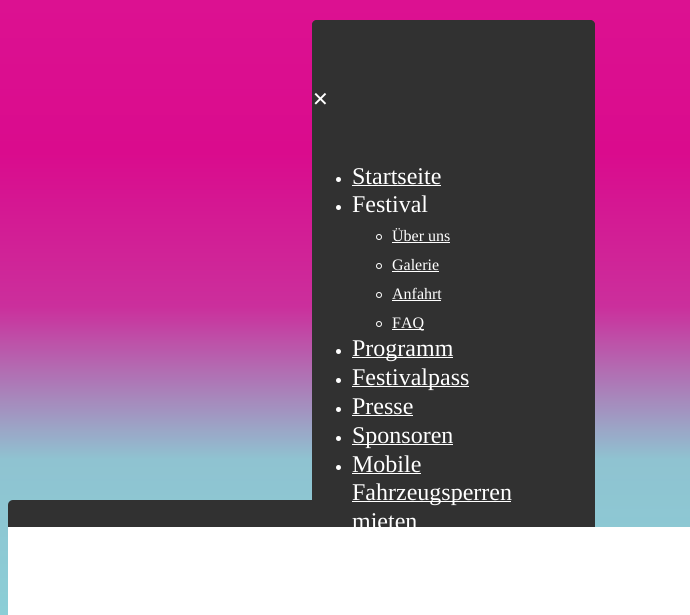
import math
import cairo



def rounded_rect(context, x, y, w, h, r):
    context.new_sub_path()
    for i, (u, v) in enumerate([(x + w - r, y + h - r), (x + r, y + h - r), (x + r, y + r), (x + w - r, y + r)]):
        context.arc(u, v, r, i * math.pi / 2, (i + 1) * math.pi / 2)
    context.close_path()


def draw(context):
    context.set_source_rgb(1, 1, 1)
    context.paint()
    gradient = cairo.LinearGradient(345, 0, 345, 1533)
    gradient.add_color_stop_rgba(0, 220 / 255, 17 / 255, 145 / 255, 1)
    gradient.add_color_stop_rgba(0.1, 218 / 255, 11 / 255, 141 / 255, 1)
    gradient.add_color_stop_rgba(0.2, 203 / 255, 47 / 255, 156 / 255, 1)
    gradient.add_color_stop_rgba(0.3, 143 / 255, 195 / 255, 209 / 255, 1)
    gradient.add_color_stop_rgba(0.4, 139 / 255, 206 / 255, 214 / 255, 1)
    gradient.add_color_stop_rgba(0.5, 140 / 255, 207 / 255, 215 / 255, 1)
    gradient.add_color_stop_rgba(0.6, 149 / 255, 201 / 255, 212 / 255, 1)
    gradient.add_color_stop_rgba(0.7, 230 / 255, 166 / 255, 200 / 255, 1)
    gradient.add_color_stop_rgba(0.8, 244 / 255, 173 / 255, 207 / 255, 1)
    gradient.add_color_stop_rgba(0.9, 248 / 255, 244 / 255, 245 / 255, 1)
    gradient.add_color_stop_rgba(1, 249 / 255, 249 / 255, 249 / 255, 1)
    context.set_source(gradient)
    context.rectangle(0, 0, 690, 615)
    context.fill()
    context.set_source_rgb(49 / 255, 49 / 255, 49 / 255)
    rounded_rect(context, 312, 20, 283, 516, 5)
    context.fill()
    rounded_rect(context, 312, 20, 283, 20, 5)
    context.fill()
    context.set_source_rgb(1, 1, 1)
    context.arc(338.5, 179.5, 2.5, 0, 2 * math.pi)
    context.fill()
    context.rectangle(352, 185, 89, 1)
    context.fill()
    context.arc(338.5, 207.5, 2.5, 0, 2 * math.pi)
    context.fill()
    context.arc(379, 237, 2.5, 0, 2 * math.pi)
    context.set_line_width(1)
    context.stroke()
    context.rectangle(392, 242, 58, 1)
    context.fill()
    context.arc(379, 266, 2.5, 0, 2 * math.pi)
    context.stroke()
    context.rectangle(392, 271, 47, 1)
    context.fill()
    context.arc(379, 295, 2.5, 0, 2 * math.pi)
    context.stroke()
    context.rectangle(392, 300, 49, 1)
    context.fill()
    context.arc(379, 324, 2.5, 0, 2 * math.pi)
    context.stroke()
    context.rectangle(392, 329, 32, 1)
    context.fill()
    context.arc(338.5, 351.5, 2.5, 0, 2 * math.pi)
    context.fill()
    context.rectangle(352, 357, 101, 1)
    context.fill()
    context.arc(338.5, 380.5, 2.5, 0, 2 * math.pi)
    context.fill()
    context.rectangle(352, 386, 117, 1)
    context.fill()
    context.arc(338.5, 409.5, 2.5, 0, 2 * math.pi)
    context.fill()
    context.rectangle(352, 415, 61, 1)
    context.fill()
    context.arc(338.5, 438.5, 2.5, 0, 2 * math.pi)
    context.fill()
    context.rectangle(352, 444, 101, 1)
    context.fill()
    context.arc(338.5, 467.5, 2.5, 0, 2 * math.pi)
    context.fill()
    context.rectangle(352, 473, 69, 1)
    context.fill()
    context.set_source_rgb(49 / 255, 49 / 255, 49 / 255)
    rounded_rect(context, 8, 500, 587, 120, 5)
    context.fill()
    context.set_source_rgb(1, 1, 1)
    context.rectangle(352, 501, 159, 1)
    context.fill()
    context.rectangle(8, 527, 682, 88)
    context.fill()
    context.select_font_face("DejaVu Sans")
    context.set_font_size(20)
    context.move_to(312, 106)
    context.show_text("✕")
    context.select_font_face("Liberation Serif")
    context.set_font_size(24)
    context.move_to(352, 184)
    context.show_text("Startseite")
    context.move_to(352, 212)
    context.show_text("Festival")
    context.set_font_size(16)
    context.move_to(392, 241)
    context.show_text("Über uns")
    context.move_to(392, 270)
    context.show_text("Galerie")
    context.move_to(392, 299)
    context.show_text("Anfahrt")
    context.move_to(392, 328)
    context.show_text("FAQ")
    context.set_font_size(24)
    context.move_to(352, 356)
    context.show_text("Programm")
    context.move_to(352, 385)
    context.show_text("Festivalpass")
    context.move_to(352, 414)
    context.show_text("Presse")
    context.move_to(352, 443)
    context.show_text("Sponsoren")
    context.move_to(352, 472)
    context.show_text("Mobile")
    context.move_to(352, 500)
    context.show_text("Fahrzeugsperren")
    context.move_to(352, 529)
    context.show_text("mieten")


surface = cairo.ImageSurface(cairo.Format.RGB24, 690, 615)
context = cairo.Context(surface)
options = cairo.FontOptions()
options.set_hint_metrics(cairo.HintMetrics.OFF)
options.set_hint_style(cairo.HintStyle.NONE)
context.set_font_options(options)
context.set_miter_limit(4)
draw(context)
surface.write_to_png("out.png")
